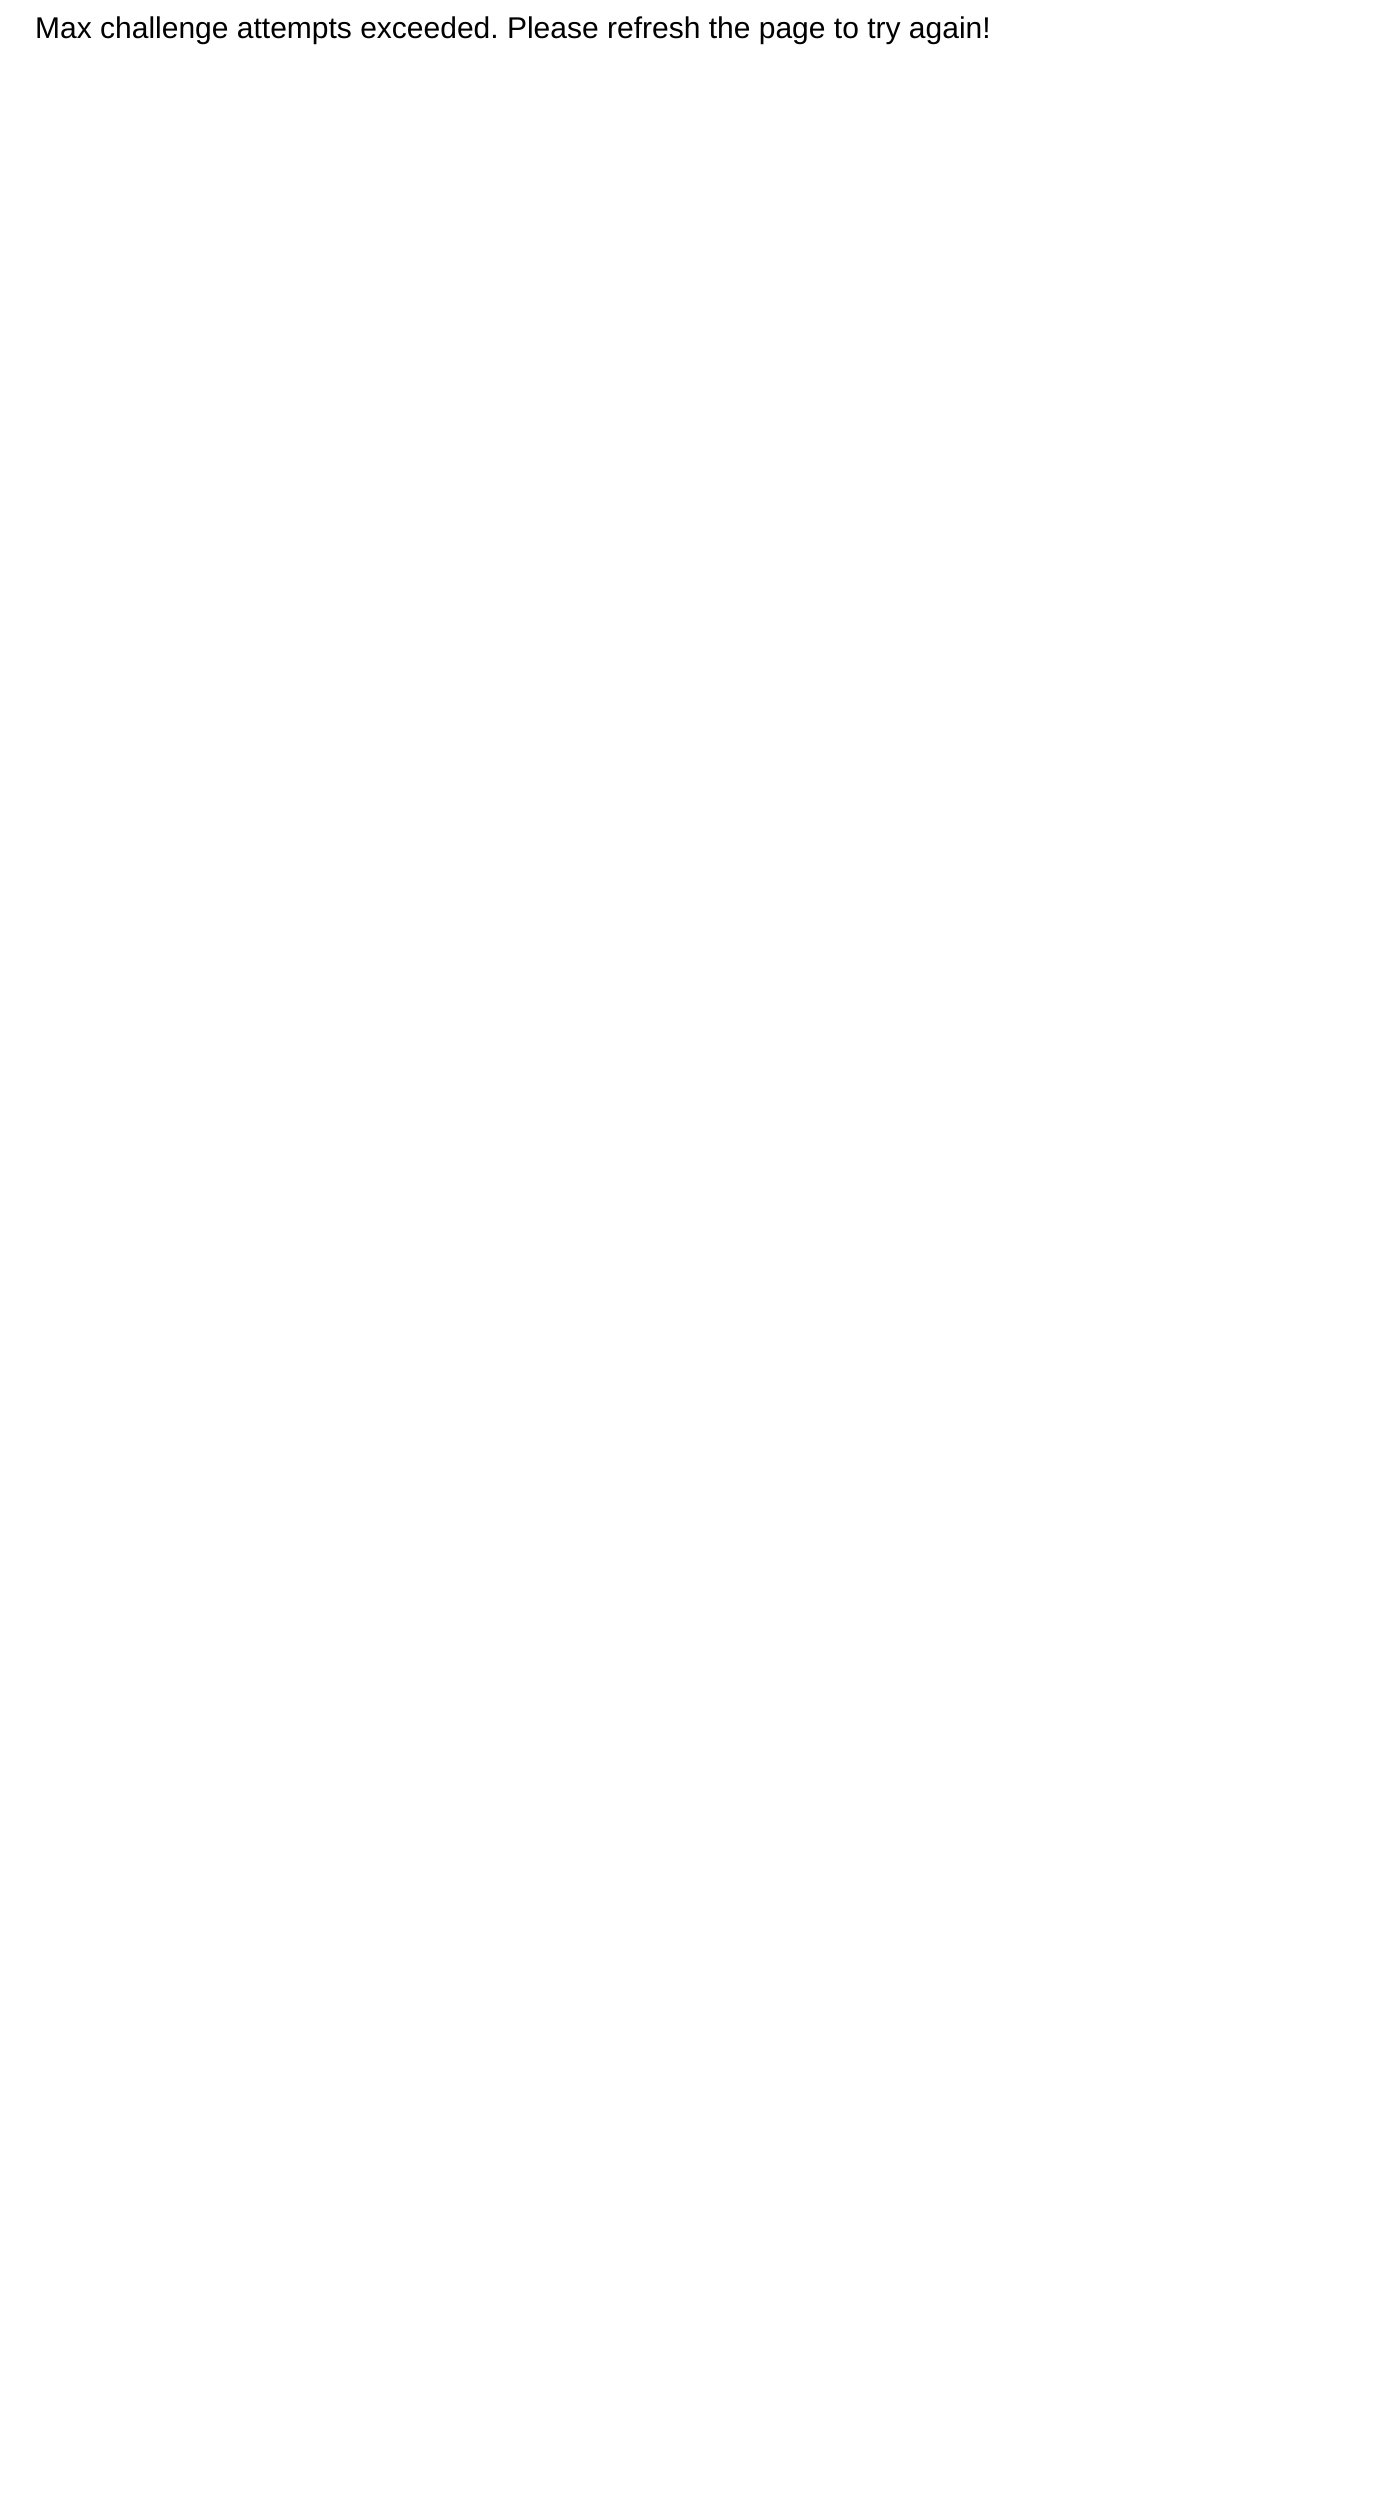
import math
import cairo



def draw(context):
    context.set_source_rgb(1, 1, 1)
    context.paint()
    context.select_font_face("Liberation Sans")
    context.set_font_size(30)
    context.set_source_rgb(0, 0, 0)
    context.move_to(35, 38)
    context.show_text("Max challenge attempts exceeded. Please refresh the page to try again!")


surface = cairo.ImageSurface(cairo.Format.RGB24, 1382, 2518)
context = cairo.Context(surface)
options = cairo.FontOptions()
options.set_hint_metrics(cairo.HintMetrics.OFF)
options.set_hint_style(cairo.HintStyle.NONE)
context.set_font_options(options)
context.set_miter_limit(4)
draw(context)
surface.write_to_png("out.png")
